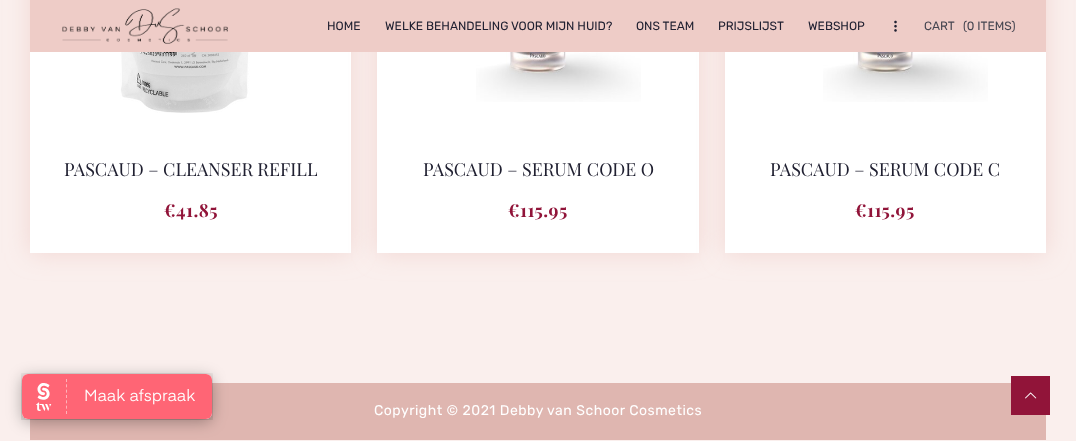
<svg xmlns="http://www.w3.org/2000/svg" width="1076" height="441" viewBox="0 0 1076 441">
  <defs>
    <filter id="blur1" x="-50%" y="-200%" width="200%" height="500%"><feGaussianBlur stdDeviation="12.5"/></filter>
    <filter id="blur2" x="-50%" y="-200%" width="200%" height="500%"><feGaussianBlur stdDeviation="7.5"/></filter>
  </defs>
  <rect width="100%" height="100%" fill="#faefed"/>
  <rect x="30" y="-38" width="321" height="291" fill="#eeccc7" fill-opacity="0.7" filter="url(#blur1)"/>
  <rect x="30" y="52" width="321" height="201" fill="#ffffff"/>
  <rect x="377" y="-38" width="322" height="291" fill="#eeccc7" fill-opacity="0.7" filter="url(#blur1)"/>
  <rect x="377" y="52" width="322" height="201" fill="#ffffff"/>
  <rect x="725" y="-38" width="321" height="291" fill="#eeccc7" fill-opacity="0.7" filter="url(#blur1)"/>
  <rect x="30" y="0" width="1016" height="52" fill="#eeccc7"/>
  <image x="62" y="8" width="166" height="36" href="img1.png"/>
  <text x="327" y="30" font-family="Rubik" font-size="12" fill="#202031">HOME</text>
  <text x="385" y="30" font-family="Rubik" font-size="12" fill="#202031">WELKE BEHANDELING VOOR MIJN HUID?</text>
  <text x="636" y="30" font-family="Rubik" font-size="12" fill="#202031">ONS TEAM</text>
  <text x="718" y="30" font-family="Rubik" font-size="12" fill="#202031">PRIJSLIJST</text>
  <text x="808" y="30" font-family="Rubik" font-size="12" fill="#202031">WEBSHOP</text>
  <image x="894" y="20" width="3" height="12" href="img2.png"/>
  <text x="924" y="30" font-family="Rubik" font-size="12" fill="#454550">CART</text>
  <text x="963" y="30" font-family="Rubik" font-size="12" fill="#454550">(0 ITEMS)</text>
  <image x="119" y="52" width="133" height="61" href="img3.png"/>
  <text x="64" y="176" font-family="Playfair Display" font-size="18" fill="#202031">PASCAUD – CLEANSER REFILL</text>
  <text x="164" y="217" font-family="Playfair Display" font-size="18" font-weight="bold" letter-spacing="0.5" fill="#911439">€41.85</text>
  <image x="476" y="52" width="165" height="50" href="img4.png"/>
  <text x="423" y="176" font-family="Playfair Display" font-size="18" fill="#202031">PASCAUD – SERUM CODE O</text>
  <text x="508" y="217" font-family="Playfair Display" font-size="18" font-weight="bold" letter-spacing="0.5" fill="#911439">€115.95</text>
  <rect x="725" y="52" width="321" height="201" fill="#ffffff"/>
  <image x="823" y="52" width="165" height="50" href="img5.png"/>
  <text x="770" y="176" font-family="Playfair Display" font-size="18" fill="#202031">PASCAUD – SERUM CODE C</text>
  <text x="855" y="217" font-family="Playfair Display" font-size="18" font-weight="bold" letter-spacing="0.5" fill="#911439">€115.95</text>
  <rect x="30" y="383" width="1016" height="57" fill="#dfb6b0"/>
  <text x="374" y="415" font-family="Rubik" font-size="14" letter-spacing="0.5" fill="#ffffff">Copyright © 2021 Debby van Schoor Cosmetics</text>
  <rect x="22" y="377" width="190" height="45" rx="6" fill="#000000" fill-opacity="0.3" filter="url(#blur2)"/>
  <image x="21" y="373" width="192" height="47" href="img6.png"/>
  <rect x="1011" y="376" width="39" height="39" fill="#911439"/>
  <image x="1025" y="392" width="12" height="7" href="img7.png"/>
</svg>
